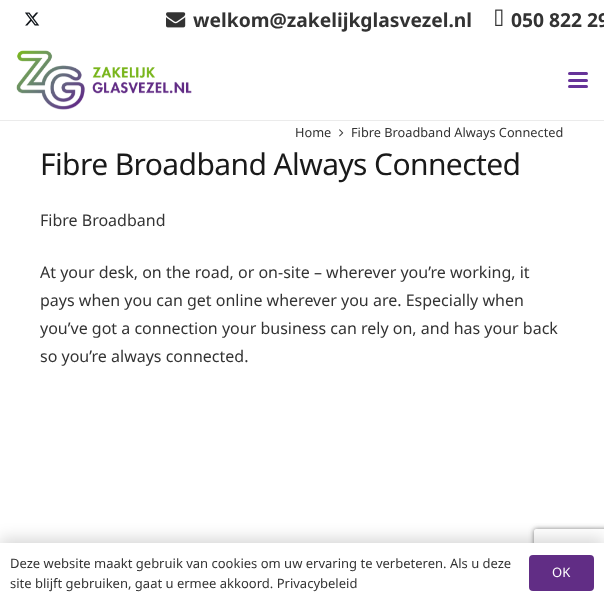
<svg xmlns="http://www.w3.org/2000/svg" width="604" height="603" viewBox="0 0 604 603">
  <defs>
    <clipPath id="clip1"><path d="M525 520H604V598H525ZM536 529H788C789 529 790 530 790 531V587C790 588 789 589 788 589H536C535 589 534 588 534 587V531C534 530 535 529 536 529Z" clip-rule="evenodd"/></clipPath>
    <filter id="blur1" x="-50%" y="-200%" width="200%" height="500%"><feGaussianBlur stdDeviation="2.5"/></filter>
    <filter id="blur2" x="-50%" y="-200%" width="200%" height="500%"><feGaussianBlur stdDeviation="7.5"/></filter>
  </defs>
  <rect width="100%" height="100%" fill="#ffffff"/>
  <image x="25" y="12" width="15" height="14" href="img1.png"/>
  <image x="166" y="12" width="20" height="16" href="img2.png"/>
  <text x="193" y="27" font-family="Noto Sans" font-size="19.25" font-weight="bold" fill="#333333">welkom@zakelijkglasvezel.nl</text>
  <image x="495" y="9" width="8" height="17" href="img3.png"/>
  <text x="511" y="27" font-family="Noto Sans" font-size="19.25" font-weight="bold" fill="#333333">050 822 29</text>
  <rect x="0" y="120" width="604" height="1" fill="#ebebeb"/>
  <image x="16" y="50" width="176" height="60" href="img4.png"/>
  <rect x="568" y="79" width="20" height="3" rx="1.5" fill="#663399"/>
  <rect x="568" y="72" width="20" height="3" rx="1.5" fill="#663399"/>
  <rect x="568" y="85" width="20" height="3" rx="1.5" fill="#663399"/>
  <text x="295" y="137" font-family="Noto Sans" font-size="12.75" fill="#333333">Home</text>
  <image x="339" y="129" width="5" height="8" href="img5.png"/>
  <text x="351" y="137" font-family="Noto Sans" font-size="12.75" fill="#333333">Fibre Broadband Always Connected</text>
  <text x="40" y="175" font-family="Noto Sans" font-size="30" letter-spacing="-0.6" fill="#1a1a1a">Fibre Broadband Always Connected</text>
  <text x="40" y="226" font-family="Noto Sans" font-size="16" fill="#333333">Fibre Broadband</text>
  <text x="40" y="278" font-family="Noto Sans" font-size="16" fill="#333333">At your desk, on the road, or on-site – wherever you’re working, it</text>
  <text x="40" y="306" font-family="Noto Sans" font-size="16" fill="#333333">pays when you can get online wherever you are. Especially when</text>
  <text x="40" y="334" font-family="Noto Sans" font-size="16" fill="#333333">you’ve got a connection your business can rely on, and has your back</text>
  <text x="40" y="362" font-family="Noto Sans" font-size="16" fill="#333333">so you’re always connected.</text>
  <g clip-path="url(#clip1)">
    <rect x="534" y="529" width="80" height="60" rx="2" fill="#808080" filter="url(#blur1)"/>
  </g>
  <rect x="0" y="538" width="604" height="60" fill="#000000" fill-opacity="0.15" filter="url(#blur2)"/>
  <rect x="0" y="543" width="604" height="60" fill="#ffffff"/>
  <text x="10" y="568" font-family="Noto Sans" font-size="13" fill="#333333">Deze website maakt gebruik van cookies om uw ervaring te verbeteren. Als u deze</text>
  <text x="10" y="588" font-family="Noto Sans" font-size="13" fill="#333333">site blijft gebruiken, gaat u ermee akkoord. Privacybeleid</text>
  <rect x="529" y="555" width="65" height="36" rx="4" fill="#612d85"/>
  <text x="552" y="577" font-family="Noto Sans" font-size="13" fill="#ffffff">OK</text>
</svg>
